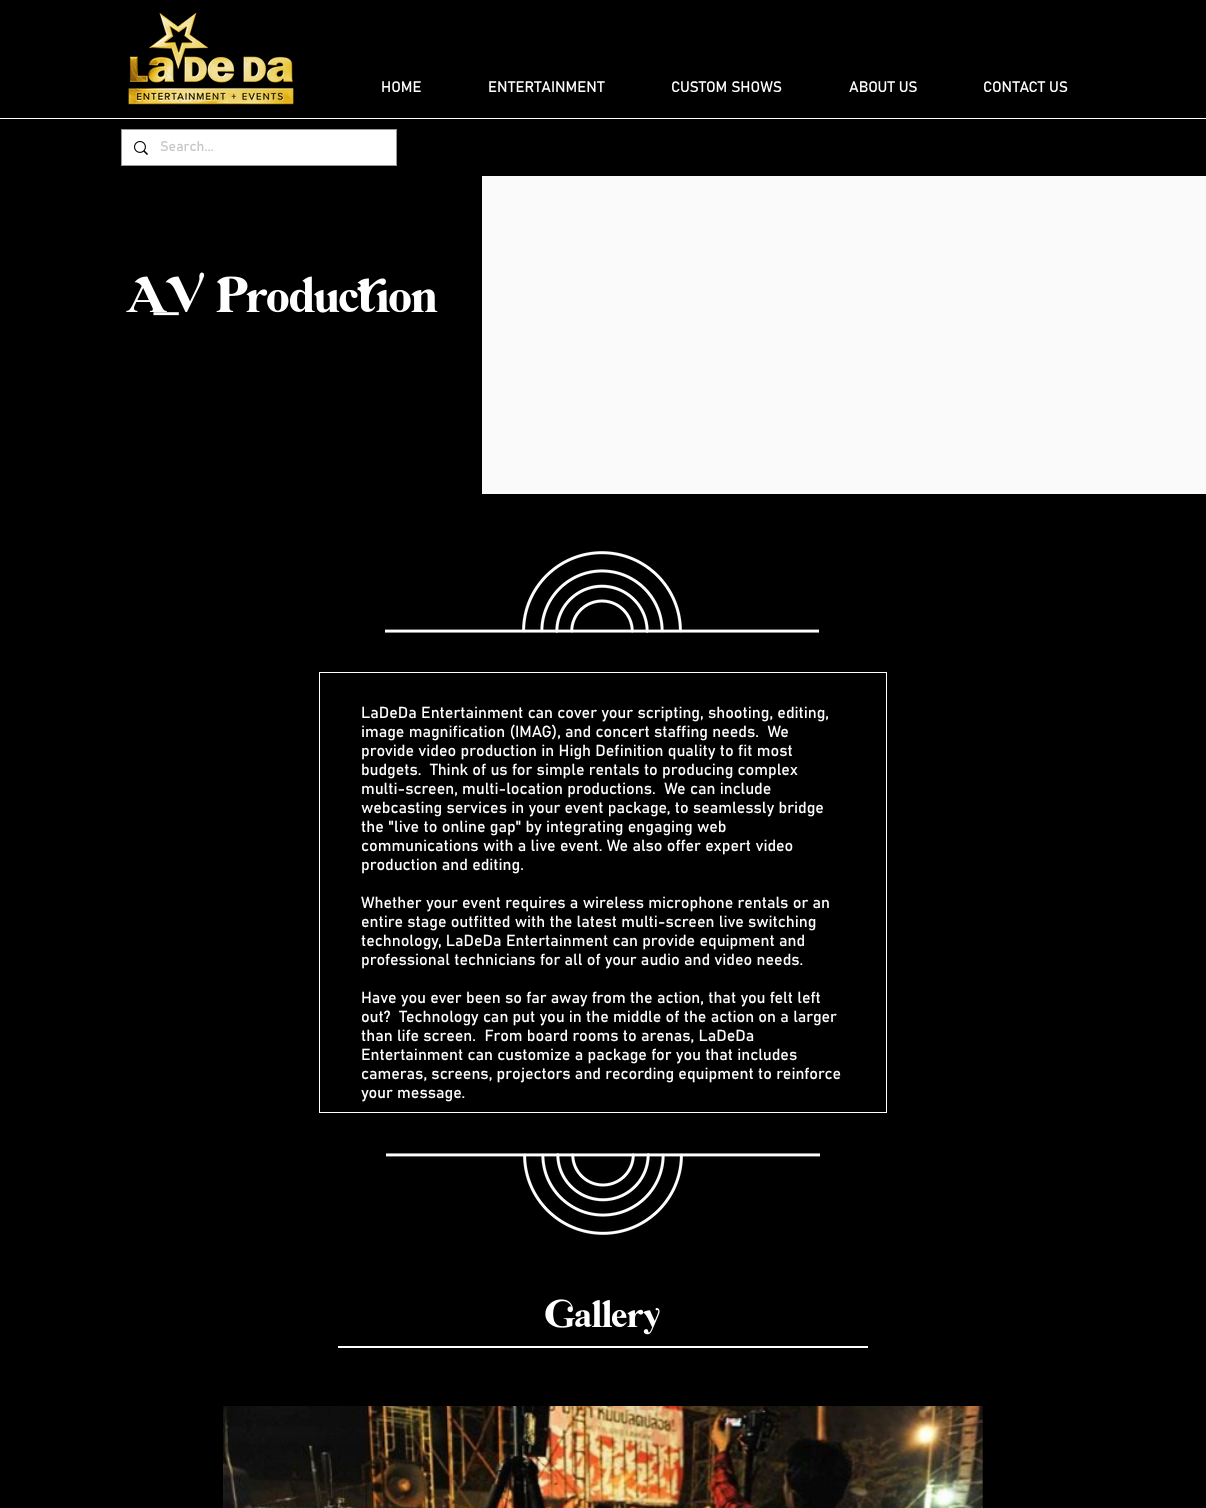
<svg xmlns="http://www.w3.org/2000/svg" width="1206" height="1508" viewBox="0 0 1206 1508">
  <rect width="100%" height="100%" fill="#000000"/>
  <image x="128" y="12" width="166" height="93" href="img1.png"/>
  <text x="381" y="92" font-family="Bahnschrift" font-size="15" fill="#ffffff">HOME</text>
  <text x="488" y="92" font-family="Bahnschrift" font-size="15" fill="#ffffff">ENTERTAINMENT</text>
  <text x="671" y="92" font-family="Bahnschrift" font-size="15" fill="#ffffff">CUSTOM SHOWS</text>
  <text x="849" y="92" font-family="Bahnschrift" font-size="15" fill="#ffffff">ABOUT US</text>
  <text x="983" y="92" font-family="Bahnschrift" font-size="15" fill="#ffffff">CONTACT US</text>
  <rect x="0" y="118" width="1206" height="1" fill="#ffffff"/>
  <rect x="121.5" y="129.5" width="275" height="36" fill="none" stroke="#999999"/>
  <rect x="122" y="130" width="274" height="35" fill="#ffffff"/>
  <image x="134" y="141" width="14" height="14" href="img2.png"/>
  <text x="160" y="151" font-family="Bahnschrift" font-size="14" fill="#c7c7c7">Search...</text>
  <image x="126" y="272" width="312" height="44" href="img3.png"/>
  <rect x="482" y="176" width="724" height="318" fill="#fafafa"/>
  <image x="385" y="551" width="434" height="82" href="img4.png"/>
  <rect x="319.5" y="672.5" width="567" height="440" fill="none" stroke="#ffffff"/>
  <text x="361" y="718" font-family="Bahnschrift" font-size="16" fill="#ffffff">LaDeDa Entertainment can cover your scripting, shooting, editing,</text>
  <text x="361" y="737" font-family="Bahnschrift" font-size="16" fill="#ffffff" xml:space="preserve">image magnification (IMAG), and concert staffing needs.  We</text>
  <text x="361" y="756" font-family="Bahnschrift" font-size="16" fill="#ffffff">provide video production in High Definition quality to fit most</text>
  <text x="361" y="775" font-family="Bahnschrift" font-size="16" fill="#ffffff" xml:space="preserve">budgets.  Think of us for simple rentals to producing complex</text>
  <text x="361" y="794" font-family="Bahnschrift" font-size="16" fill="#ffffff" xml:space="preserve">multi-screen, multi-location productions.  We can include</text>
  <text x="361" y="813" font-family="Bahnschrift" font-size="16" fill="#ffffff">webcasting services in your event package, to seamlessly bridge</text>
  <text x="361" y="832" font-family="Bahnschrift" font-size="16" fill="#ffffff">the "live to online gap" by integrating engaging web</text>
  <text x="361" y="851" font-family="Bahnschrift" font-size="16" fill="#ffffff">communications with a live event. We also offer expert video</text>
  <text x="361" y="870" font-family="Bahnschrift" font-size="16" fill="#ffffff">production and editing.</text>
  <text x="361" y="908" font-family="Bahnschrift" font-size="16" fill="#ffffff">Whether your event requires a wireless microphone rentals or an</text>
  <text x="361" y="927" font-family="Bahnschrift" font-size="16" fill="#ffffff">entire stage outfitted with the latest multi-screen live switching</text>
  <text x="361" y="946" font-family="Bahnschrift" font-size="16" fill="#ffffff">technology, LaDeDa Entertainment can provide equipment and</text>
  <text x="361" y="965" font-family="Bahnschrift" font-size="16" fill="#ffffff">professional technicians for all of your audio and video needs.</text>
  <text x="361" y="1003" font-family="Bahnschrift" font-size="16" fill="#ffffff">Have you ever been so far away from the action, that you felt left</text>
  <text x="361" y="1022" font-family="Bahnschrift" font-size="16" fill="#ffffff" xml:space="preserve">out?  Technology can put you in the middle of the action on a larger</text>
  <text x="361" y="1041" font-family="Bahnschrift" font-size="16" fill="#ffffff" xml:space="preserve">than life screen.  From board rooms to arenas, LaDeDa</text>
  <text x="361" y="1060" font-family="Bahnschrift" font-size="16" fill="#ffffff">Entertainment can customize a package for you that includes</text>
  <text x="361" y="1079" font-family="Bahnschrift" font-size="16" fill="#ffffff">cameras, screens, projectors and recording equipment to reinforce</text>
  <text x="361" y="1098" font-family="Bahnschrift" font-size="16" fill="#ffffff">your message.</text>
  <image x="386" y="1153" width="434" height="82" href="img5.png"/>
  <image x="545" y="1299" width="115" height="36" href="img6.png"/>
  <rect x="338" y="1346" width="530" height="2" fill="#ffffff"/>
  <image x="223" y="1406" width="760" height="102" href="img7.png"/>
</svg>
